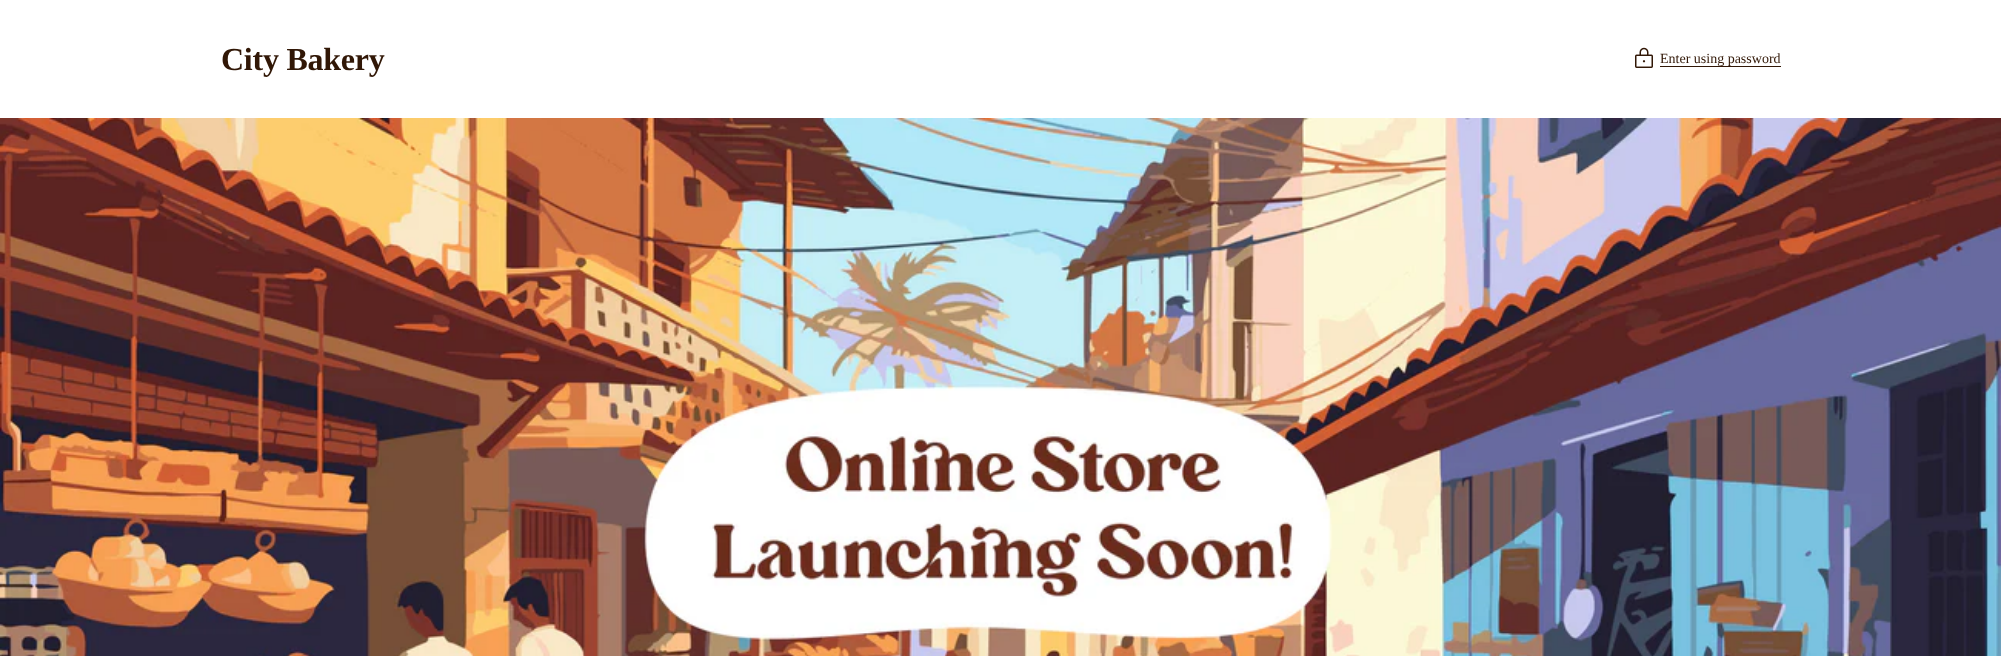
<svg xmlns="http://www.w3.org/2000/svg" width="2001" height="656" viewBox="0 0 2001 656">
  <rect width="100%" height="100%" fill="#ffffff"/>
  <text x="221" y="70" font-family="Liberation Serif" font-size="32" font-weight="bold" letter-spacing="-0.25" fill="#311706">City Bakery</text>
  <image x="1635" y="47" width="18" height="21" href="img1.png"/>
  <text x="1660" y="63" font-family="Liberation Serif" font-size="14" fill="#311706">Enter using password</text>
  <rect x="1660" y="66" width="121" height="1" fill="#311706"/>
  <image x="0" y="118" width="2001" height="538" href="img2.png"/>
</svg>
